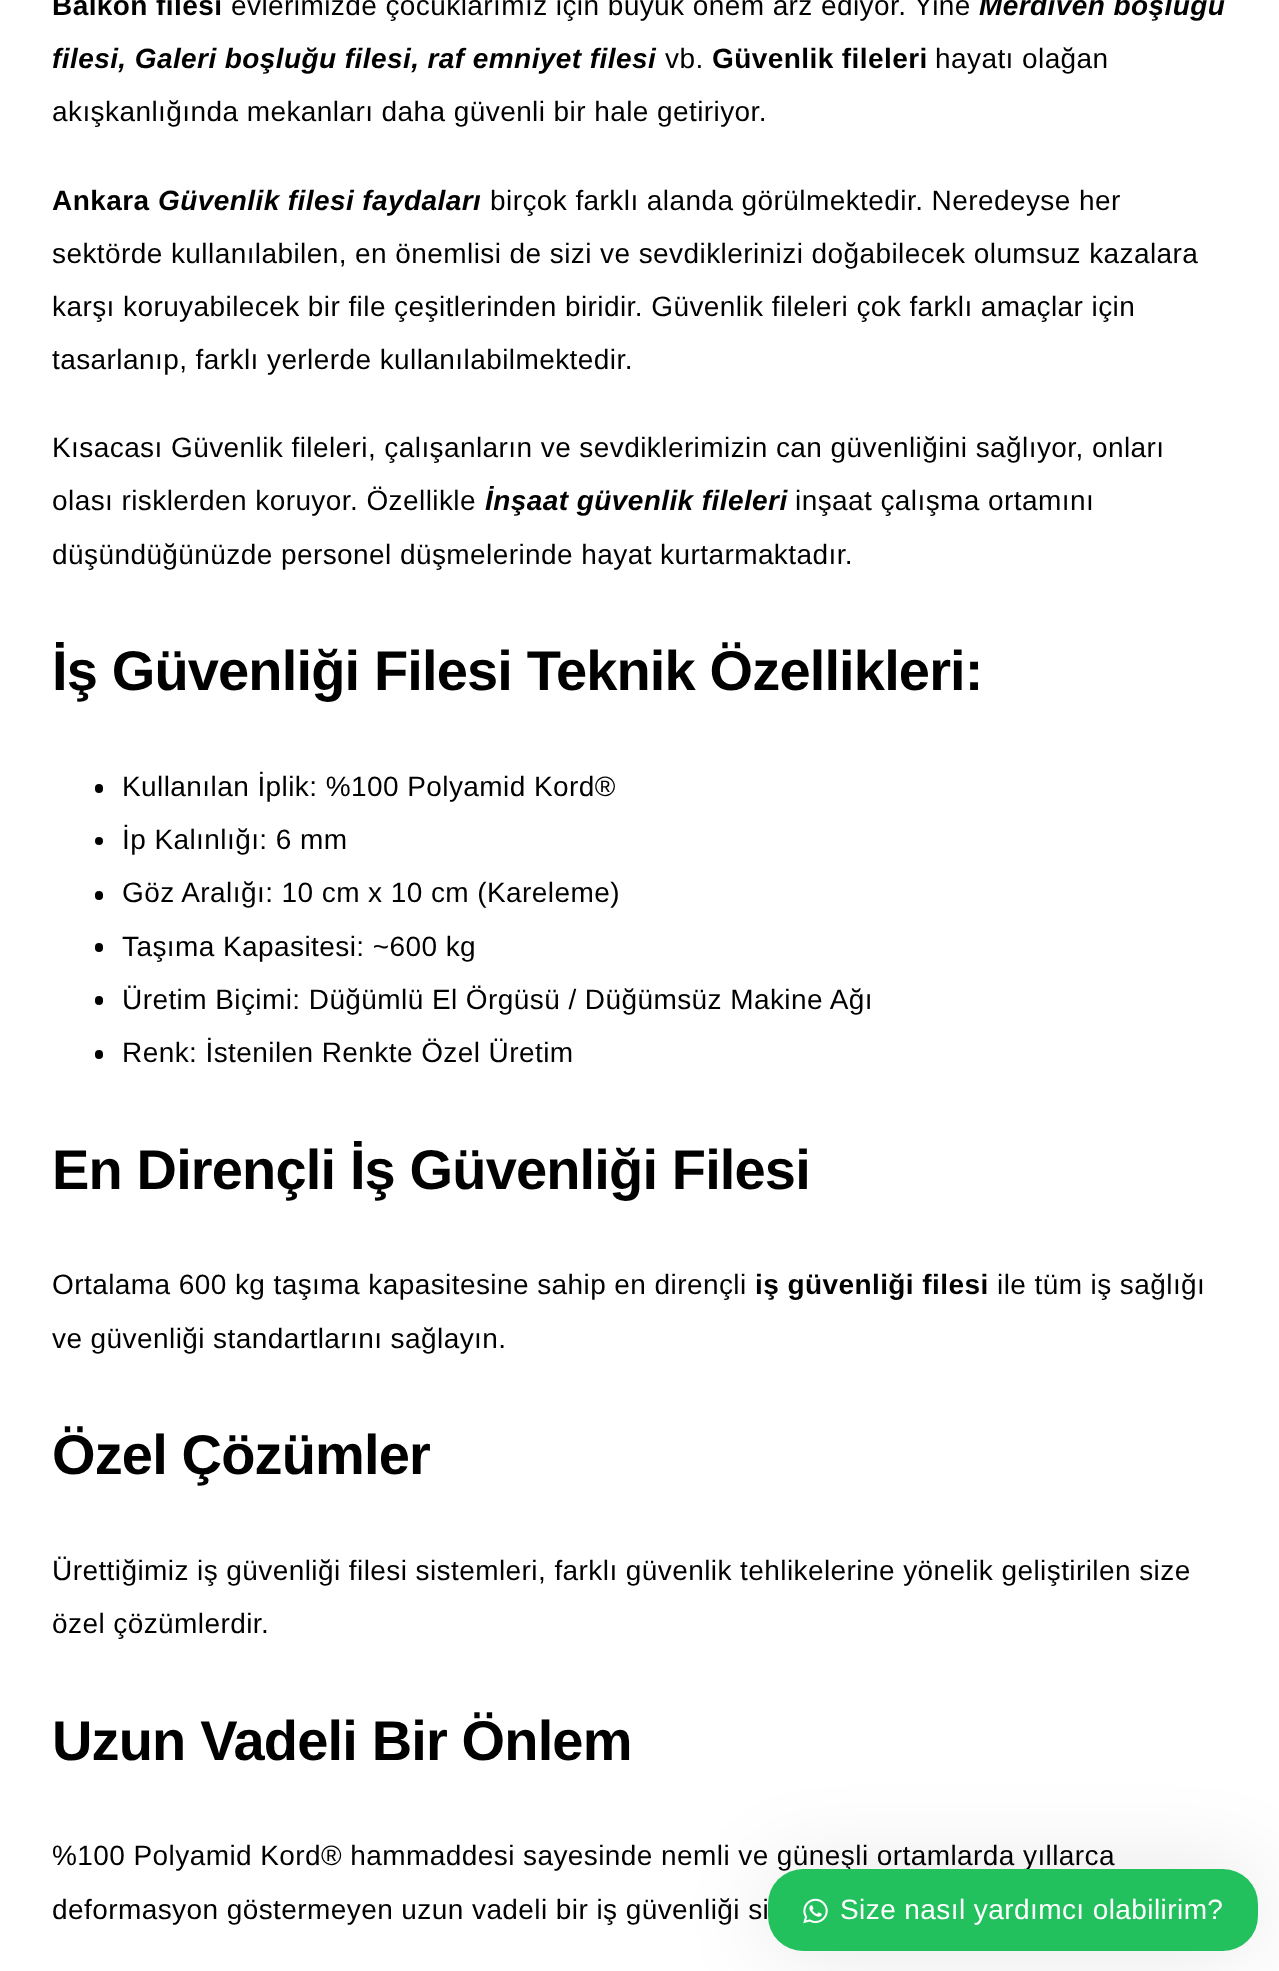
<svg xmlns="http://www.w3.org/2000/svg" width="1279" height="1971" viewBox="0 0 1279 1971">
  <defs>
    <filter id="blur1" x="-50%" y="-200%" width="200%" height="500%"><feGaussianBlur stdDeviation="44"/></filter>
  </defs>
  <rect width="100%" height="100%" fill="#ffffff"/>
  <text x="52" y="15" font-family="Liberation Sans" font-size="28" font-weight="bold" letter-spacing="0.42" fill="#000000">Balkon filesi</text>
  <text x="231" y="15" font-family="Liberation Sans" font-size="28" letter-spacing="0.42" fill="#000000">evlerimizde çocuklarımız için büyük önem arz ediyor. Yine</text>
  <text x="979" y="15" font-family="Liberation Sans" font-size="28" font-weight="bold" font-style="italic" letter-spacing="0.42" fill="#000000">Merdiven boşluğu</text>
  <text x="52" y="68" font-family="Liberation Sans" font-size="28" font-weight="bold" font-style="italic" letter-spacing="0.42" fill="#000000">filesi, Galeri boşluğu filesi, raf emniyet filesi</text>
  <text x="665" y="68" font-family="Liberation Sans" font-size="28" letter-spacing="0.42" fill="#000000">vb.</text>
  <text x="712" y="68" font-family="Liberation Sans" font-size="28" font-weight="bold" letter-spacing="0.42" fill="#000000">Güvenlik fileleri</text>
  <text x="935" y="68" font-family="Liberation Sans" font-size="28" letter-spacing="0.42" fill="#000000">hayatı olağan</text>
  <text x="52" y="121" font-family="Liberation Sans" font-size="28" letter-spacing="0.42" fill="#000000">akışkanlığında mekanları daha güvenli bir hale getiriyor.</text>
  <text x="52" y="210" font-family="Liberation Sans" font-size="28" font-weight="bold" letter-spacing="0.42" fill="#000000">Ankara</text>
  <text x="158" y="210" font-family="Liberation Sans" font-size="28" font-weight="bold" font-style="italic" letter-spacing="0.42" fill="#000000">Güvenlik filesi faydaları</text>
  <text x="490" y="210" font-family="Liberation Sans" font-size="28" letter-spacing="0.42" fill="#000000">birçok farklı alanda görülmektedir. Neredeyse her</text>
  <text x="52" y="263" font-family="Liberation Sans" font-size="28" letter-spacing="0.42" fill="#000000">sektörde kullanılabilen, en önemlisi de sizi ve sevdiklerinizi doğabilecek olumsuz kazalara</text>
  <text x="52" y="316" font-family="Liberation Sans" font-size="28" letter-spacing="0.42" fill="#000000">karşı koruyabilecek bir file çeşitlerinden biridir. Güvenlik fileleri çok farklı amaçlar için</text>
  <text x="52" y="369" font-family="Liberation Sans" font-size="28" letter-spacing="0.42" fill="#000000">tasarlanıp, farklı yerlerde kullanılabilmektedir.</text>
  <text x="52" y="457" font-family="Liberation Sans" font-size="28" letter-spacing="0.42" fill="#000000">Kısacası Güvenlik fileleri, çalışanların ve sevdiklerimizin can güvenliğini sağlıyor, onları</text>
  <text x="52" y="510" font-family="Liberation Sans" font-size="28" letter-spacing="0.42" fill="#000000">olası risklerden koruyor. Özellikle</text>
  <text x="485" y="510" font-family="Liberation Sans" font-size="28" font-weight="bold" font-style="italic" letter-spacing="0.42" fill="#000000">İnşaat güvenlik fileleri</text>
  <text x="795" y="510" font-family="Liberation Sans" font-size="28" letter-spacing="0.42" fill="#000000">inşaat çalışma ortamını</text>
  <text x="52" y="564" font-family="Liberation Sans" font-size="28" letter-spacing="0.42" fill="#000000">düşündüğünüzde personel düşmelerinde hayat kurtarmaktadır.</text>
  <text x="52" y="690" font-family="Liberation Sans" font-size="56" font-weight="bold" letter-spacing="-0.85" fill="#000000">İş Güvenliği Filesi Teknik Özellikleri:</text>
  <rect x="95" y="784" width="8" height="9" rx="4" fill="#000000"/>
  <text x="122" y="796" font-family="Liberation Sans" font-size="28" letter-spacing="0.42" fill="#000000">Kullanılan İplik: %100 Polyamid Kord®</text>
  <circle cx="99" cy="841" r="4" fill="#000000"/>
  <text x="122" y="849" font-family="Liberation Sans" font-size="28" letter-spacing="0.42" fill="#000000">İp Kalınlığı: 6 mm</text>
  <rect x="95" y="891" width="8" height="9" rx="4" fill="#000000"/>
  <text x="122" y="902" font-family="Liberation Sans" font-size="28" letter-spacing="0.42" fill="#000000">Göz Aralığı: 10 cm x 10 cm (Kareleme)</text>
  <rect x="95" y="943" width="8" height="9" rx="4" fill="#000000"/>
  <text x="122" y="956" font-family="Liberation Sans" font-size="28" letter-spacing="0.42" fill="#000000">Taşıma Kapasitesi: ~600 kg</text>
  <rect x="95" y="996" width="8" height="9" rx="4" fill="#000000"/>
  <text x="122" y="1009" font-family="Liberation Sans" font-size="28" letter-spacing="0.42" fill="#000000">Üretim Biçimi: Düğümlü El Örgüsü / Düğümsüz Makine Ağı</text>
  <rect x="95" y="1050" width="8" height="9" rx="4" fill="#000000"/>
  <text x="122" y="1062" font-family="Liberation Sans" font-size="28" letter-spacing="0.42" fill="#000000">Renk: İstenilen Renkte Özel Üretim</text>
  <text x="52" y="1189" font-family="Liberation Sans" font-size="56" font-weight="bold" letter-spacing="-0.85" fill="#000000">En Dirençli İş Güvenliği Filesi</text>
  <text x="52" y="1294" font-family="Liberation Sans" font-size="28" letter-spacing="0.42" fill="#000000">Ortalama 600 kg taşıma kapasitesine sahip en dirençli</text>
  <text x="755" y="1294" font-family="Liberation Sans" font-size="28" font-weight="bold" letter-spacing="0.42" fill="#000000">iş güvenliği filesi</text>
  <text x="997" y="1294" font-family="Liberation Sans" font-size="28" letter-spacing="0.42" fill="#000000">ile tüm iş sağlığı</text>
  <text x="52" y="1348" font-family="Liberation Sans" font-size="28" letter-spacing="0.42" fill="#000000">ve güvenliği standartlarını sağlayın.</text>
  <text x="52" y="1474" font-family="Liberation Sans" font-size="56" font-weight="bold" letter-spacing="-0.85" fill="#000000">Özel Çözümler</text>
  <text x="52" y="1580" font-family="Liberation Sans" font-size="28" letter-spacing="0.42" fill="#000000">Ürettiğimiz iş güvenliği filesi sistemleri, farklı güvenlik tehlikelerine yönelik geliştirilen size</text>
  <text x="52" y="1633" font-family="Liberation Sans" font-size="28" letter-spacing="0.42" fill="#000000">özel çözümlerdir.</text>
  <text x="52" y="1760" font-family="Liberation Sans" font-size="56" font-weight="bold" letter-spacing="-0.85" fill="#000000">Uzun Vadeli Bir Önlem</text>
  <text x="52" y="1865" font-family="Liberation Sans" font-size="28" letter-spacing="0.42" fill="#000000">%100 Polyamid Kord® hammaddesi sayesinde nemli ve güneşli ortamlarda yıllarca</text>
  <text x="52" y="1919" font-family="Liberation Sans" font-size="28" letter-spacing="0.42" fill="#000000">deformasyon göstermeyen uzun vadeli bir iş güvenliği si</text>
  <rect x="768" y="1869" width="490" height="82" rx="35" fill="#000000" fill-opacity="0.1" filter="url(#blur1)"/>
  <rect x="768" y="1869" width="490" height="82" rx="35" fill="#22c15e"/>
  <image x="803" y="1898" width="25" height="26" href="img1.png"/>
  <text x="840" y="1919" font-family="Liberation Sans" font-size="28" letter-spacing="0.42" fill="#ffffff">Size nasıl yardımcı olabilirim?</text>
</svg>
